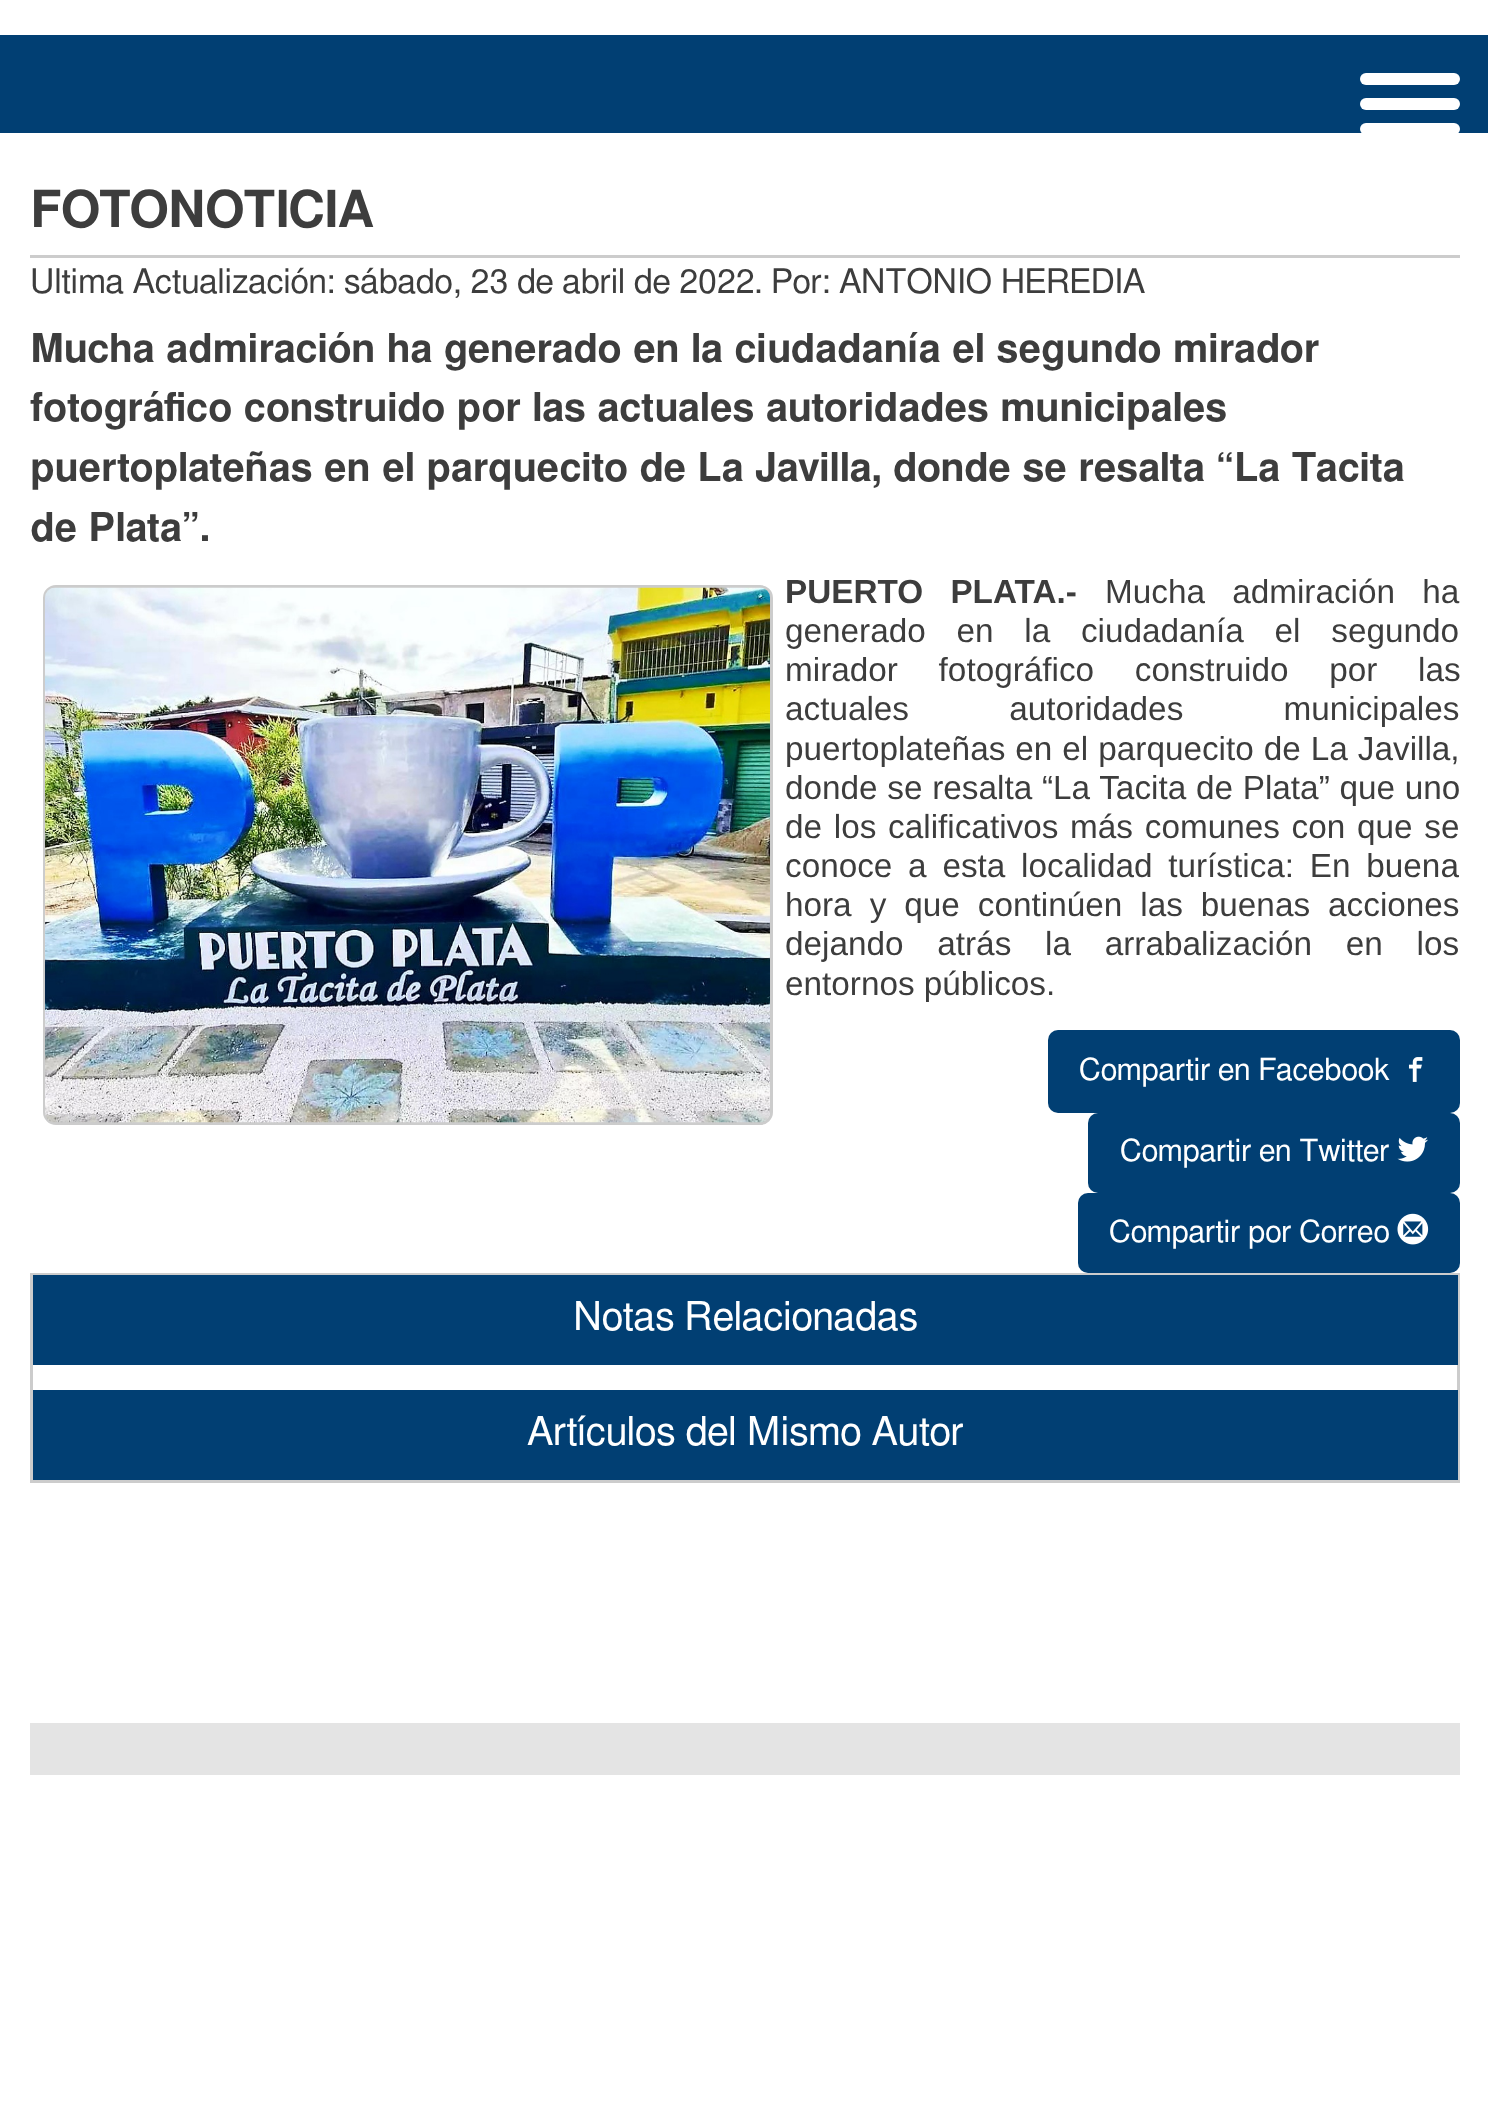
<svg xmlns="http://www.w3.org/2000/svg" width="1488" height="2111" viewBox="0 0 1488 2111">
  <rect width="100%" height="100%" fill="#ffffff"/>
  <rect x="0" y="35" width="1488" height="98" fill="#013f73"/>
  <rect x="1360" y="73" width="100" height="12" rx="6" fill="#ffffff"/>
  <rect x="1360" y="98" width="100" height="12" rx="6" fill="#ffffff"/>
  <rect x="1360" y="123" width="100" height="12" rx="6" fill="#ffffff"/>
  <rect x="30" y="255" width="1430" height="3" fill="#cccccc"/>
  <text x="30" y="227" font-family="FreeSans" font-size="51" font-weight="600" fill="#3d3d3d">FOTONOTICIA</text>
  <text x="30" y="293" font-family="FreeSans" font-size="34" fill="#3d3d3d">Ultima Actualización: sábado, 23 de abril de 2022</text>
  <text x="754" y="293" font-family="FreeSans" font-size="34" fill="#3d3d3d">. Por: ANTONIO HEREDIA</text>
  <text x="30" y="362" font-family="FreeSans" font-size="39.8" font-weight="600" fill="#3d3d3d">Mucha admiración ha generado en la ciudadanía el segundo mirador</text>
  <text x="30" y="421" font-family="FreeSans" font-size="39.8" font-weight="600" fill="#3d3d3d">fotográfico construido por las actuales autoridades municipales</text>
  <text x="30" y="481" font-family="FreeSans" font-size="39.8" font-weight="600" fill="#3d3d3d">puertoplateñas en el parquecito de La Javilla, donde se resalta “La Tacita</text>
  <text x="30" y="541" font-family="FreeSans" font-size="39.8" font-weight="600" fill="#3d3d3d">de Plata”.</text>
  <rect x="44.5" y="586.5" width="727" height="537" rx="11.5" fill="none" stroke="#cccccc" stroke-width="3"/>
  <image x="45" y="587" width="725" height="536" href="img1.png"/>
  <text x="785" y="603" word-spacing="18" font-family="Liberation Sans" font-size="33.3" font-weight="bold" fill="#3d3d3d">PUERTO PLATA.-</text>
  <text x="1105" y="603" word-spacing="18" font-family="Liberation Sans" font-size="33.3" fill="#3d3d3d">Mucha admiración ha</text>
  <text x="785" y="642" word-spacing="21.5" font-family="Liberation Sans" font-size="33.3" fill="#3d3d3d">generado en la ciudadanía el segundo</text>
  <text x="785" y="681" word-spacing="31.5" font-family="Liberation Sans" font-size="33.3" fill="#3d3d3d">mirador fotográfico construido por las</text>
  <text x="785" y="720" word-spacing="91" font-family="Liberation Sans" font-size="33.3" fill="#3d3d3d">actuales autoridades municipales</text>
  <text x="785" y="760" word-spacing="0.75" font-family="Liberation Sans" font-size="33.3" fill="#3d3d3d">puertoplateñas en el parquecito de La Javilla,</text>
  <text x="785" y="799" word-spacing="0.5" font-family="Liberation Sans" font-size="33.3" fill="#3d3d3d">donde se resalta “La Tacita de Plata” que uno</text>
  <text x="785" y="838" word-spacing="2.5" font-family="Liberation Sans" font-size="33.3" fill="#3d3d3d">de los calificativos más comunes con que se</text>
  <text x="785" y="877" word-spacing="6.5" font-family="Liberation Sans" font-size="33.3" fill="#3d3d3d">conoce a esta localidad turística: En buena</text>
  <text x="785" y="916" word-spacing="8.75" font-family="Liberation Sans" font-size="33.3" fill="#3d3d3d">hora y que continúen las buenas acciones</text>
  <text x="785" y="955" word-spacing="24.5" font-family="Liberation Sans" font-size="33.3" fill="#3d3d3d">dejando atrás la arrabalización en los</text>
  <text x="785" y="995" font-family="Liberation Sans" font-size="33.3" fill="#3d3d3d">entornos públicos.</text>
  <rect x="1048" y="1030" width="412" height="83" rx="10" fill="#013f73"/>
  <text x="1079" y="1080" font-family="FreeSans" font-size="30.6" fill="#ffffff">Compartir en Facebook</text>
  <image x="1408" y="1057" width="15" height="25" href="img2.png"/>
  <rect x="1088" y="1113" width="372" height="80" rx="10" fill="#013f73"/>
  <text x="1120" y="1161" font-family="FreeSans" font-size="30.6" fill="#ffffff">Compartir en Twitter</text>
  <image x="1397" y="1136" width="31" height="26" href="img3.png"/>
  <rect x="1078" y="1193" width="382" height="80" rx="10" fill="#013f73"/>
  <text x="1109" y="1242" font-family="FreeSans" font-size="30.6" fill="#ffffff">Compartir por Correo</text>
  <image x="1397" y="1213" width="32" height="32" href="img4.png"/>
  <rect x="31.5" y="1274.5" width="1427" height="207" fill="none" stroke="#cccccc" stroke-width="3"/>
  <rect x="33" y="1275" width="1425" height="90" fill="#013f73"/>
  <text x="573" y="1330" font-family="FreeSans" font-size="39.8" fill="#ffffff">Notas Relacionadas</text>
  <rect x="33" y="1390" width="1425" height="90" fill="#013f73"/>
  <text x="527" y="1445" font-family="FreeSans" font-size="39.8" fill="#ffffff">Artículos del Mismo Autor</text>
  <rect x="30" y="1723" width="1430" height="52" fill="#e4e4e4"/>
</svg>
